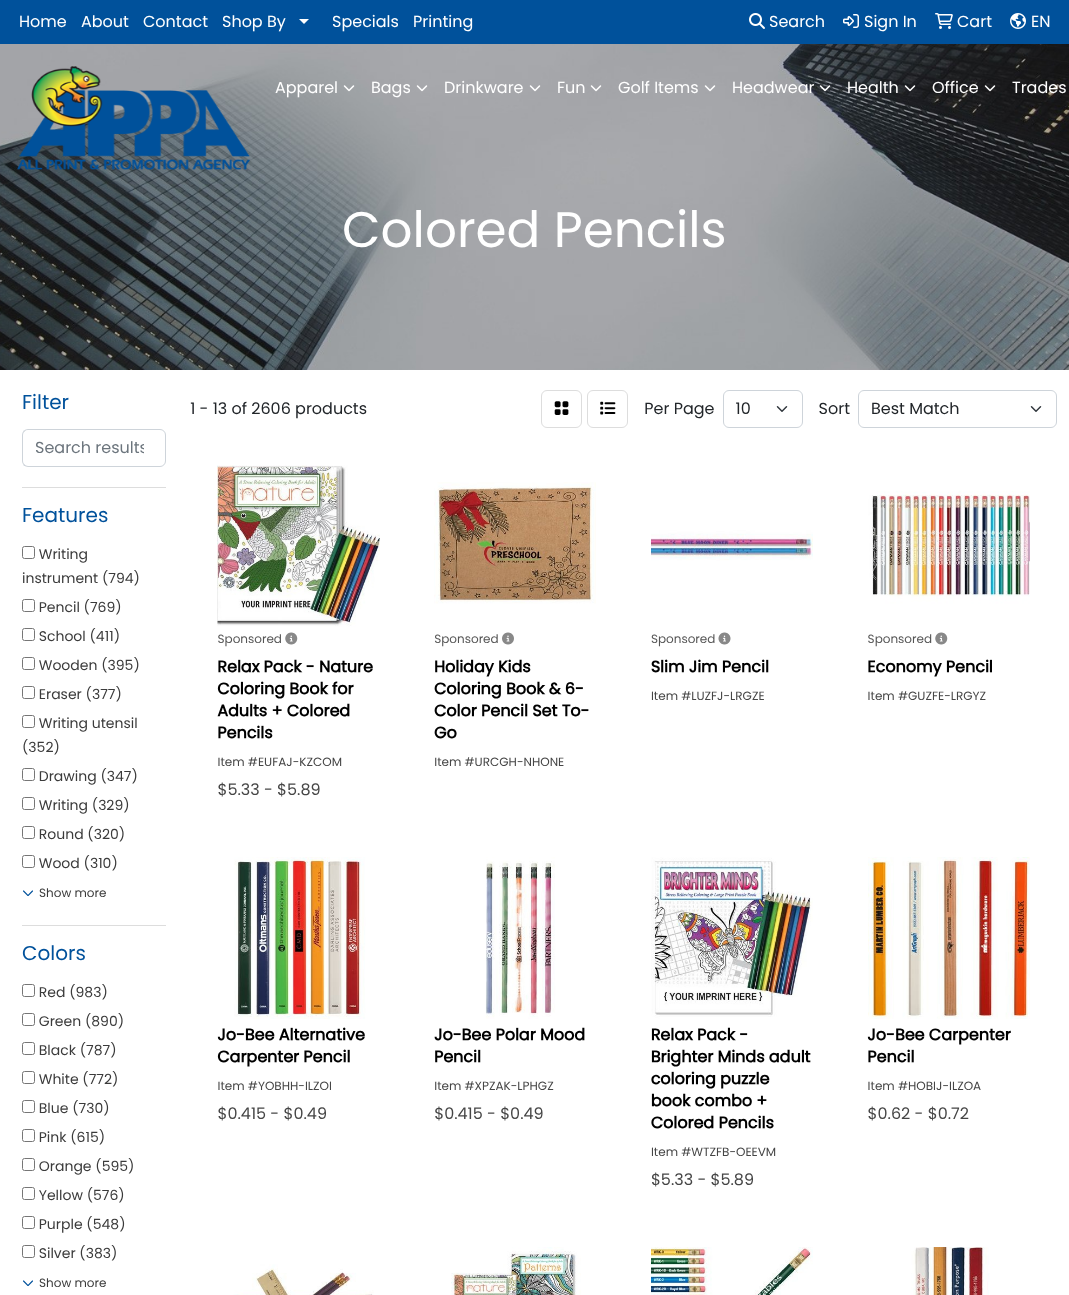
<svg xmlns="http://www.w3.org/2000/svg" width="1069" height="1295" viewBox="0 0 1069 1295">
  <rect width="100%" height="100%" fill="#ffffff"/>
  <rect x="0" y="0" width="1069" height="44" fill="#00519b"/>
  <text x="19" y="27" font-family="Poppins" font-size="16" fill="#ffffff">Home</text>
  <text x="81" y="27" font-family="Poppins" font-size="16" fill="#ffffff">About</text>
  <text x="143" y="27" font-family="Poppins" font-size="16" fill="#ffffff">Contact</text>
  <text x="222" y="27" font-family="Poppins" font-size="16" fill="#ffffff">Shop By</text>
  <path d="M299 19H309L304 24Z" fill="#ffffff"/>
  <text x="332" y="27" font-family="Poppins" font-size="16" fill="#ffffff">Specials</text>
  <text x="413" y="27" font-family="Poppins" font-size="16" fill="#ffffff">Printing</text>
  <image x="749" y="13" width="16" height="16" href="img1.png"/>
  <text x="769" y="27" font-family="Poppins" font-size="16" fill="#ffffff">Search</text>
  <image x="843" y="14" width="16" height="14" href="img2.png"/>
  <text x="864" y="27" font-family="Poppins" font-size="16" fill="#ffffff">Sign In</text>
  <image x="935" y="13" width="18" height="16" href="img3.png"/>
  <text x="957" y="27" font-family="Poppins" font-size="16" fill="#ffffff">Cart</text>
  <image x="1010" y="13" width="16" height="16" href="img4.png"/>
  <text x="1031" y="27" font-family="Poppins" font-size="16" fill="#ffffff">EN</text>
  <image x="0" y="44" width="1069" height="326" href="img14.png"/>
  <image x="17" y="66" width="233" height="104" href="img5.png"/>
  <text x="275" y="93" font-family="Poppins" font-size="16" fill="#ffffff">Apparel</text>
  <image x="343" y="85" width="12" height="7" href="img6.png"/>
  <text x="371" y="93" font-family="Poppins" font-size="16" fill="#ffffff">Bags</text>
  <image x="416" y="85" width="12" height="7" href="img7.png"/>
  <text x="444" y="93" font-family="Poppins" font-size="16" fill="#ffffff">Drinkware</text>
  <image x="529" y="85" width="12" height="7" href="img8.png"/>
  <text x="557" y="93" font-family="Poppins" font-size="16" fill="#ffffff">Fun</text>
  <image x="590" y="85" width="12" height="7" href="img9.png"/>
  <text x="618" y="93" font-family="Poppins" font-size="16" fill="#ffffff">Golf Items</text>
  <image x="704" y="85" width="12" height="7" href="img10.png"/>
  <text x="732" y="93" font-family="Poppins" font-size="16" fill="#ffffff">Headwear</text>
  <image x="819" y="85" width="12" height="7" href="img11.png"/>
  <text x="847" y="93" font-family="Poppins" font-size="16" fill="#ffffff">Health</text>
  <image x="904" y="85" width="12" height="7" href="img12.png"/>
  <text x="932" y="93" font-family="Poppins" font-size="16" fill="#ffffff">Office</text>
  <image x="984" y="85" width="12" height="7" href="img13.png"/>
  <text x="1012" y="93" font-family="Poppins" font-size="16" fill="#ffffff">Trades</text>
  <text x="342" y="247" font-family="Poppins" font-size="50" fill="#ffffff">Colored Pencils</text>
  <image x="22" y="390" width="1035" height="905" href="img15.png"/>
</svg>
